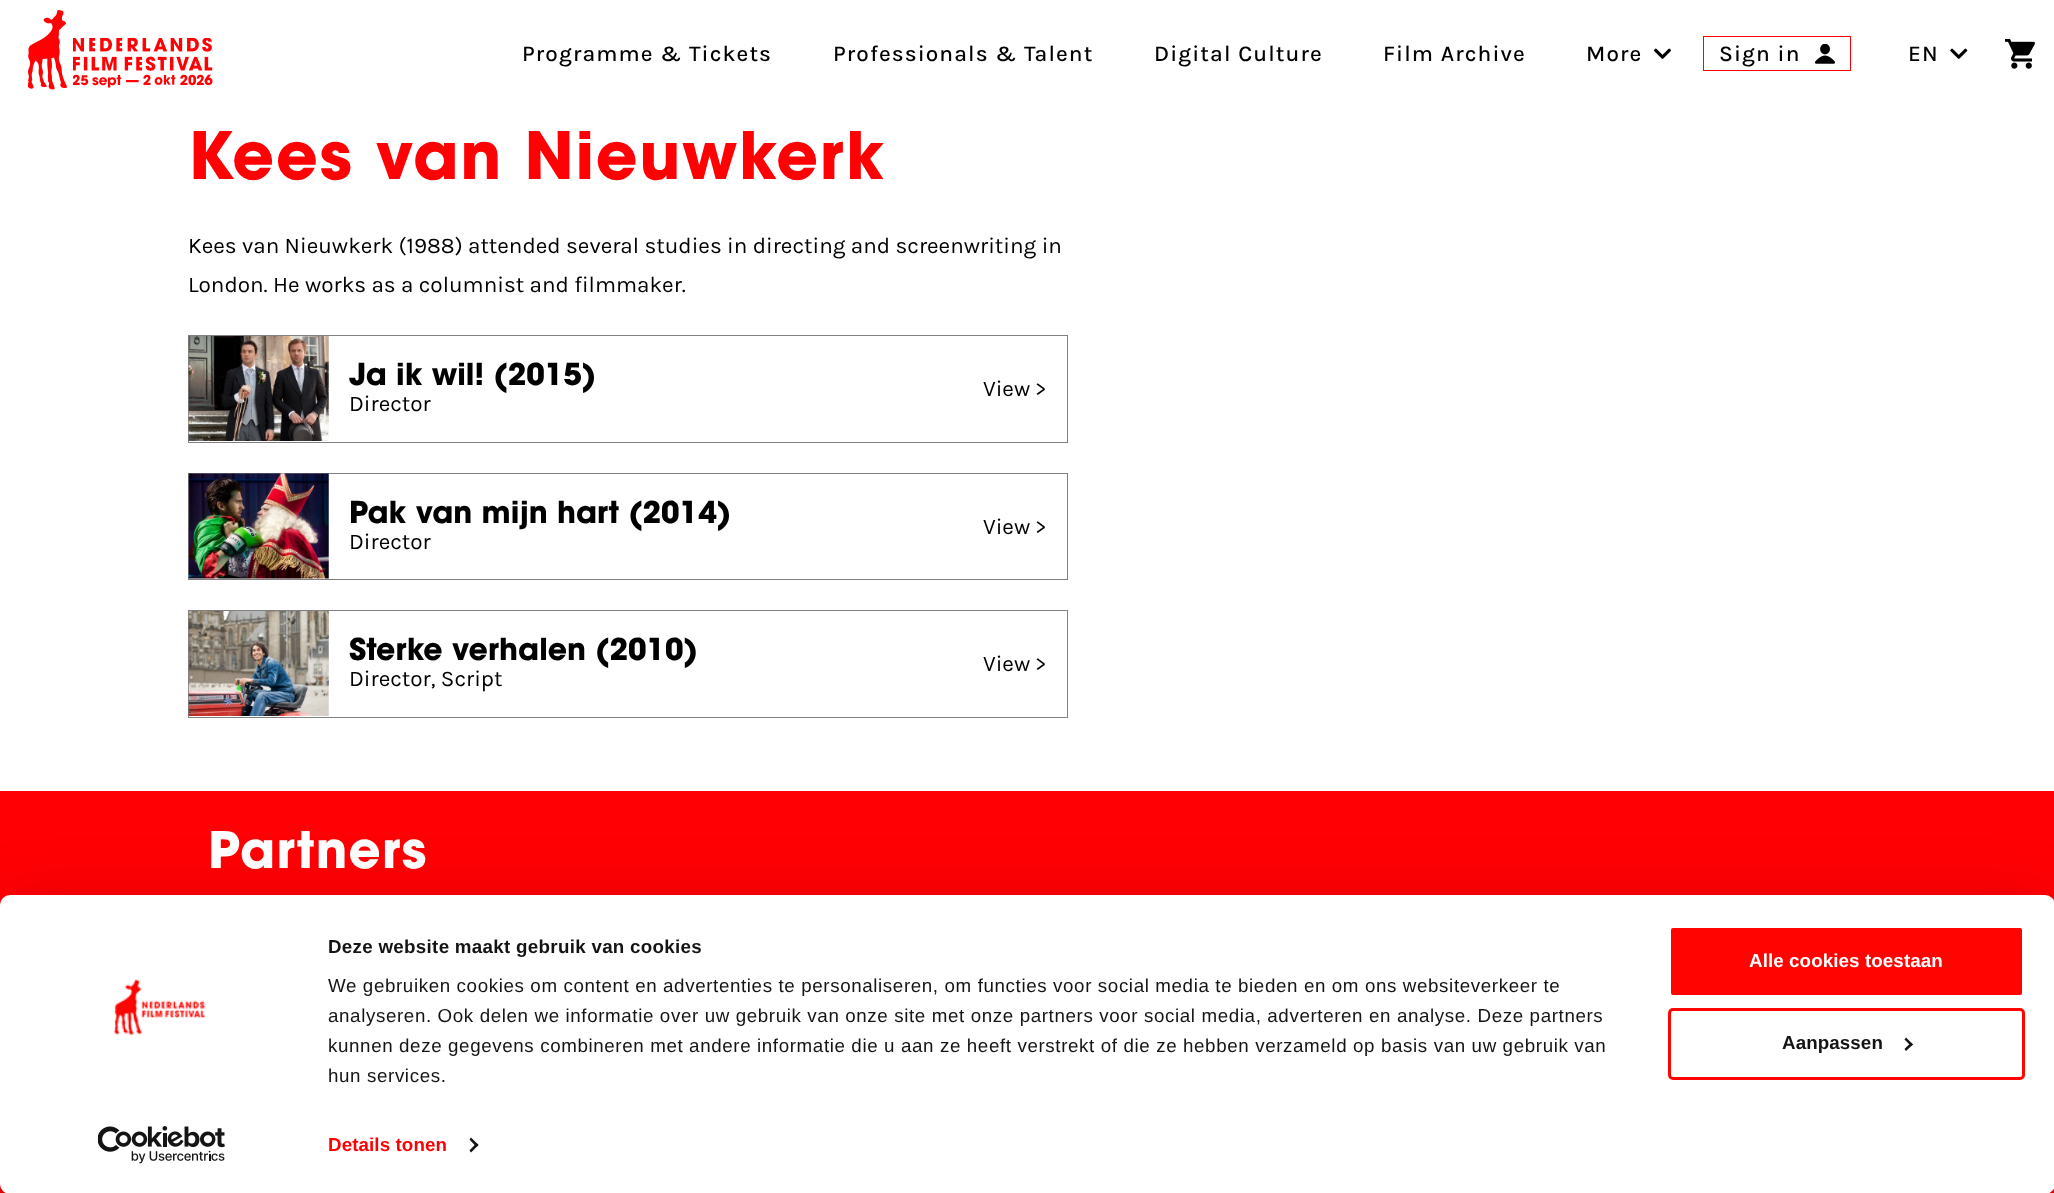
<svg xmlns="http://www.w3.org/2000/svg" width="2054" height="1193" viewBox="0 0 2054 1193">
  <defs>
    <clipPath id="clip1"><rect x="0" y="131" width="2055" height="657"/></clipPath>
    <filter id="blur1" x="-50%" y="-200%" width="200%" height="500%"><feGaussianBlur stdDeviation="44"/></filter>
  </defs>
  <rect width="100%" height="100%" fill="#ffffff"/>
  <image x="28" y="10" width="39" height="80" href="img1.png"/>
  <image x="73" y="38" width="140" height="50" href="img2.png"/>
  <text x="522" y="61" font-family="Karla" font-size="22.5" font-weight="500" letter-spacing="1.1" fill="#000000">Programme &amp; Tickets</text>
  <text x="833" y="61" font-family="Karla" font-size="22.5" font-weight="500" letter-spacing="1.1" fill="#000000">Professionals &amp; Talent</text>
  <text x="1154" y="61" font-family="Karla" font-size="22.5" font-weight="500" letter-spacing="1.1" fill="#000000">Digital Culture</text>
  <text x="1383" y="61" font-family="Karla" font-size="22.5" font-weight="500" letter-spacing="1.1" fill="#000000">Film Archive</text>
  <text x="1586" y="61" font-family="Karla" font-size="22.5" font-weight="500" letter-spacing="1.1" fill="#000000">More</text>
  <image x="1654" y="48" width="17" height="11" href="img3.png"/>
  <rect x="1703.5" y="36.5" width="147" height="34" fill="none" stroke="#ff0004"/>
  <text x="1719" y="61" font-family="Karla" font-size="22.5" font-weight="500" letter-spacing="1.1" fill="#000000">Sign in</text>
  <image x="1815" y="44" width="20" height="20" href="img4.png"/>
  <text x="1908" y="61" font-family="Karla" font-size="22.5" font-weight="500" letter-spacing="1.1" fill="#000000">EN</text>
  <image x="1950" y="48" width="18" height="11" href="img5.png"/>
  <image x="2005" y="39" width="30" height="30" href="img6.png"/>
  <g clip-path="url(#clip1)">
    <text x="188" y="179" font-family="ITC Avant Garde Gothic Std" font-size="65" font-weight="bold" letter-spacing="1.6" fill="#ff0004">Kees van Nieuwkerk</text>
  </g>
  <text x="188" y="253" font-family="Karla" font-size="22.5" fill="#000000">Kees van Nieuwkerk (1988) attended several studies in directing and screenwriting in</text>
  <text x="188" y="292" font-family="Karla" font-size="22.5" fill="#000000">London. He works as a columnist and filmmaker.</text>
  <rect x="188.5" y="335.5" width="879" height="107" fill="none" stroke="#808080"/>
  <image x="188" y="336" width="141" height="105" href="img7.png"/>
  <text x="349" y="385" font-family="ITC Avant Garde Gothic Std" font-size="30" font-weight="bold" fill="#000000">Ja ik wil! (2015)</text>
  <text x="349" y="411" font-family="Karla" font-size="22.5" fill="#000000">Director</text>
  <text x="983" y="396" font-family="Karla" font-size="22.5" fill="#000000">View &gt;</text>
  <rect x="188.5" y="473.5" width="879" height="106" fill="none" stroke="#808080"/>
  <image x="188" y="473" width="141" height="106" href="img8.png"/>
  <text x="349" y="523" font-family="ITC Avant Garde Gothic Std" font-size="30" font-weight="bold" fill="#000000">Pak van mijn hart (2014)</text>
  <text x="349" y="549" font-family="Karla" font-size="22.5" fill="#000000">Director</text>
  <text x="983" y="534" font-family="Karla" font-size="22.5" fill="#000000">View &gt;</text>
  <rect x="188.5" y="610.5" width="879" height="107" fill="none" stroke="#808080"/>
  <image x="188" y="611" width="141" height="105" href="img9.png"/>
  <text x="349" y="660" font-family="ITC Avant Garde Gothic Std" font-size="30" font-weight="bold" fill="#000000">Sterke verhalen (2010)</text>
  <text x="349" y="686" font-family="Karla" font-size="22.5" fill="#000000">Director, Script</text>
  <text x="983" y="671" font-family="Karla" font-size="22.5" fill="#000000">View &gt;</text>
  <rect x="0" y="791" width="2054" height="402" fill="#ff0004"/>
  <text x="208" y="868" font-family="ITC Avant Garde Gothic Std" font-size="50" font-weight="bold" letter-spacing="1.25" fill="#ffffff">Partners</text>
  <rect x="0" y="933" width="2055" height="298" rx="10" fill="#000000" fill-opacity="0.3" filter="url(#blur1)"/>
  <rect x="0" y="895" width="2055" height="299" rx="10" fill="#ffffff"/>
  <image x="113" y="979" width="93" height="56" href="img10.png"/>
  <image x="98" y="1126" width="127" height="38" href="img11.png"/>
  <text x="328" y="953" font-family="Liberation Sans" font-size="18.75" font-weight="bold" letter-spacing="0.3" fill="#141414">Deze website maakt gebruik van cookies</text>
  <text x="328" y="992" font-family="Liberation Sans" font-size="18.75" letter-spacing="0.62" fill="#141414">We gebruiken cookies om content en advertenties te personaliseren, om functies voor social media te bieden en om ons websiteverkeer te</text>
  <text x="328" y="1022" font-family="Liberation Sans" font-size="18.75" letter-spacing="0.62" fill="#141414">analyseren. Ook delen we informatie over uw gebruik van onze site met onze partners voor social media, adverteren en analyse. Deze partners</text>
  <text x="328" y="1052" font-family="Liberation Sans" font-size="18.75" letter-spacing="0.62" fill="#141414">kunnen deze gegevens combineren met andere informatie die u aan ze heeft verstrekt of die ze hebben verzameld op basis van uw gebruik van</text>
  <text x="328" y="1082" font-family="Liberation Sans" font-size="18.75" letter-spacing="0.62" fill="#141414">hun services.</text>
  <text x="328" y="1151" font-family="Liberation Sans" font-size="18.75" font-weight="bold" letter-spacing="0.1" fill="#ff0004">Details tonen</text>
  <path d="M471 1137.5L478.5 1145L476.5 1147L469.5 1139.5Z" fill="#141414"/>
  <path d="M476.5 1143L478.5 1145L471 1152.5L469.5 1150.5Z" fill="#141414"/>
  <rect x="1669.5" y="926.5" width="354" height="70" rx="3.5" fill="#ff0400" stroke="#ffffff" stroke-width="3"/>
  <text x="1749" y="967" font-family="Liberation Sans" font-size="18.75" font-weight="bold" letter-spacing="0.1" fill="#ffffff">Alle cookies toestaan</text>
  <rect x="1669.5" y="1009.5" width="354" height="69" rx="3.5" fill="none" stroke="#ff0400" stroke-width="3"/>
  <text x="1782" y="1049" font-family="Liberation Sans" font-size="18.75" font-weight="bold" letter-spacing="0.1" fill="#141414">Aanpassen</text>
  <path d="M1906 1037.5L1913 1044.5L1911 1046L1904.5 1039.5Z" fill="#141414"/>
  <path d="M1911 1042.5L1913 1044.5L1906 1051L1904.5 1049Z" fill="#141414"/>
</svg>
